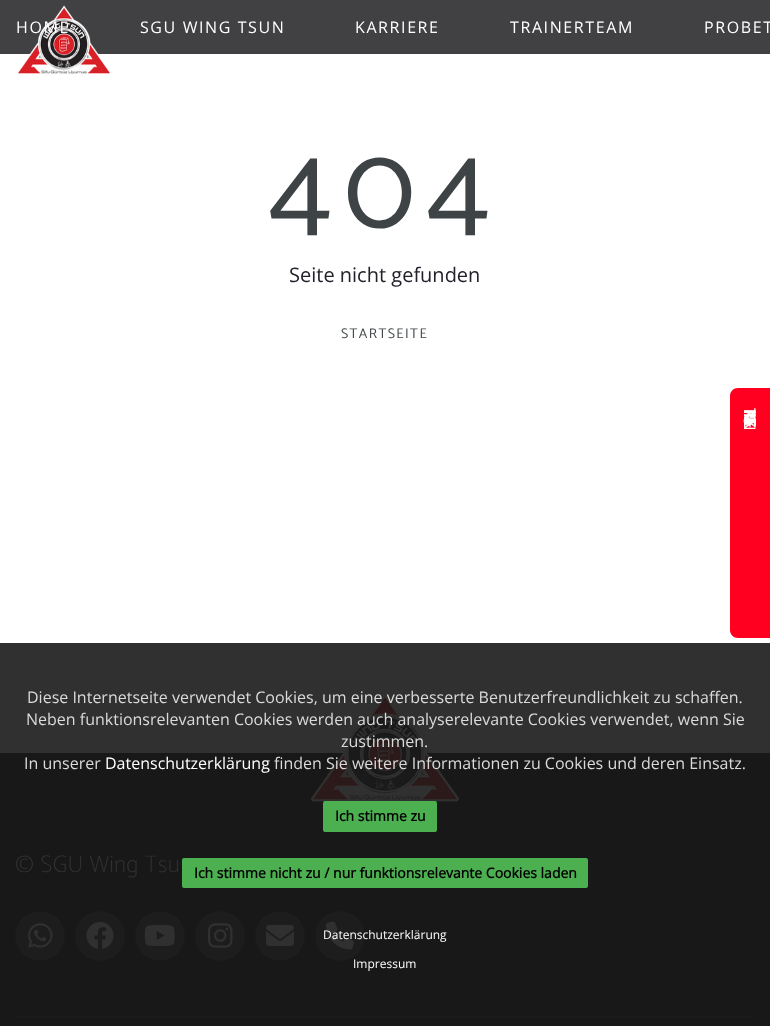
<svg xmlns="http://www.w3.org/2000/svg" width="770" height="1026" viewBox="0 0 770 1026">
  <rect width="100%" height="100%" fill="#ffffff"/>
  <rect x="0" y="643" width="770" height="110" fill="#303030"/>
  <rect x="0" y="0" width="770" height="54" fill="#414043"/>
  <image x="18" y="5" width="92" height="70" href="img1.png"/>
  <text x="16" y="33" font-family="Open Sans" font-size="16" letter-spacing="1.6" fill="#ffffff">HOME</text>
  <text x="140" y="33" font-family="Open Sans" font-size="16" letter-spacing="1.6" fill="#ffffff">SGU WING TSUN</text>
  <text x="355" y="33" font-family="Open Sans" font-size="16" letter-spacing="1.6" fill="#ffffff">KARRIERE</text>
  <text x="510" y="33" font-family="Open Sans" font-size="16" letter-spacing="1.6" fill="#ffffff">TRAINERTEAM</text>
  <text x="704" y="33" font-family="Open Sans" font-size="16" letter-spacing="1.6" fill="#ffffff">PROBET</text>
  <text x="269" y="227" font-family="Catamaran" font-size="120" letter-spacing="12" fill="#3e4446">404</text>
  <text x="289" y="282" font-family="Open Sans" font-size="20" fill="#21222a">Seite nicht gefunden</text>
  <text x="341" y="338" font-family="Catamaran" font-size="14" letter-spacing="1.4" fill="#3e4446">STARTSEITE</text>
  <path d="M738 388H770V638H738C733.5 638 730 634.5 730 630V396C730 391.5 733.5 388 738 388Z" fill="#ff0021"/>
  <text x="744" y="408" transform="rotate(90 744 408)" font-family="Open Sans" font-size="16" letter-spacing="-8" fill="#ffffff">TRAININGSZEITEN</text>
  <rect x="0" y="753" width="770" height="273" fill="#181818"/>
  <image x="310" y="697" width="150" height="105" href="img2.png"/>
  <text x="15" y="872" font-family="Catamaran" font-size="24" font-weight="100" letter-spacing="0.25" fill="#303030">© SGU Wing Tsu</text>
  <circle cx="40" cy="936" r="25" fill="#1d1d1e"/>
  <image x="28" y="923" width="25" height="25" href="img3.png"/>
  <circle cx="100" cy="936" r="25" fill="#1d1d1e"/>
  <image x="86" y="921" width="28" height="28" href="img4.png"/>
  <circle cx="160" cy="936" r="25" fill="#1d1d1e"/>
  <image x="144" y="925" width="31" height="21" href="img5.png"/>
  <circle cx="220" cy="936" r="25" fill="#1d1d1e"/>
  <image x="208" y="923" width="25" height="25" href="img6.png"/>
  <circle cx="280" cy="936" r="25" fill="#1d1d1e"/>
  <image x="266" y="925" width="28" height="21" href="img7.png"/>
  <circle cx="340" cy="936" r="25" fill="#1d1d1e"/>
  <image x="326" y="921" width="28" height="29" href="img8.png"/>
  <rect x="15" y="1016" width="740" height="1" fill="#1b1b1b"/>
  <text x="27" y="703" font-family="Open Sans" font-size="16" fill="#dadada">Diese Internetseite verwendet Cookies, um eine verbesserte Benutzerfreundlichkeit zu schaffen.</text>
  <text x="26" y="725" font-family="Open Sans" font-size="16" fill="#dadada">Neben funktionsrelevanten Cookies werden auch analyserelevante Cookies verwendet, wenn Sie</text>
  <text x="341" y="747" font-family="Open Sans" font-size="16" fill="#dadada">zustimmen.</text>
  <text x="24" y="769" font-family="Open Sans" font-size="16" fill="#dadada">In unserer</text>
  <text x="105" y="769" font-family="Open Sans" font-size="16" fill="#ffffff">Datenschutzerklärung</text>
  <text x="274" y="769" font-family="Open Sans" font-size="16" fill="#dadada">finden Sie weitere Informationen zu Cookies und deren Einsatz.</text>
  <rect x="323" y="801" width="114" height="31" rx="2" fill="#4caf50"/>
  <text x="335" y="821" font-family="Open Sans" font-size="14" font-weight="bold" fill="#000000">Ich stimme zu</text>
  <rect x="182" y="858" width="406" height="30" rx="2" fill="#4caf50"/>
  <text x="194" y="878" font-family="Open Sans" font-size="14" font-weight="bold" fill="#000000">Ich stimme nicht zu / nur funktionsrelevante Cookies laden</text>
  <text x="323" y="939" font-family="Open Sans" font-size="12" fill="#ffffff">Datenschutzerklärung</text>
  <text x="353" y="968" font-family="Open Sans" font-size="12" fill="#ffffff">Impressum</text>
</svg>
